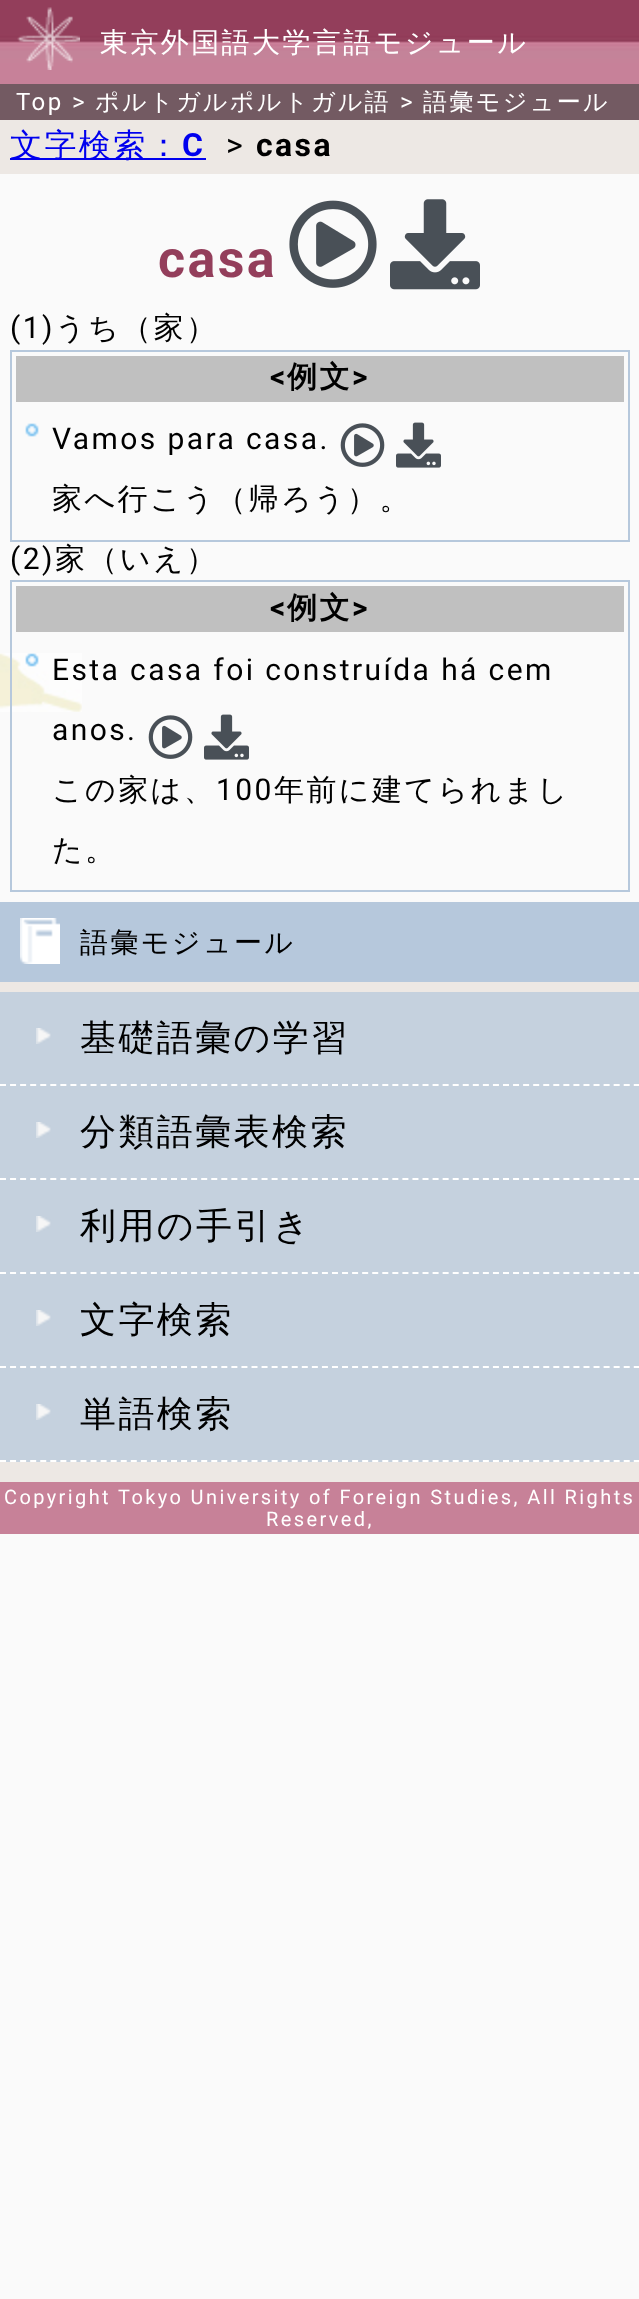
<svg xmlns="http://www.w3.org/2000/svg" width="639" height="2299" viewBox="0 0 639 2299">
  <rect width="100%" height="100%" fill="#fafafa"/>
  <image x="0" y="653" width="82" height="59" href="img1.png"/>
  <image x="0" y="0" width="639" height="84" href="img2.png"/>
  <image x="17" y="7" width="63" height="63" href="img3.png"/>
  <text x="100" y="52" font-family="WenQuanYi Zen Hei" font-size="28" font-weight="500" letter-spacing="2.4" fill="#ffffff">東京外国語大学言語モジュール</text>
  <rect x="0" y="84" width="639" height="36" fill="#735a62"/>
  <text x="16" y="110" font-family="Roboto" font-size="24" letter-spacing="2.4" fill="#ffffff">Top &gt;</text>
  <text x="95" y="110" font-family="WenQuanYi Zen Hei" font-size="24" font-weight="500" letter-spacing="2.4" fill="#ffffff">ポルトガルポルトガル語</text>
  <text x="400" y="110" font-family="Roboto" font-size="24" letter-spacing="2.4" fill="#ffffff">&gt;</text>
  <text x="423" y="110" font-family="WenQuanYi Zen Hei" font-size="24" font-weight="500" letter-spacing="2.4" fill="#ffffff">語彙モジュール</text>
  <rect x="0" y="120" width="639" height="54" fill="#ede8e4"/>
  <rect x="10" y="158" width="196" height="2" fill="#0000ee"/>
  <text x="10" y="156" font-family="WenQuanYi Zen Hei" font-size="32" font-weight="500" letter-spacing="2.4" fill="#0000ee">文字検索：</text>
  <text x="182" y="156" font-family="Roboto" font-size="32" font-weight="bold" letter-spacing="2.4" fill="#0000ee">C</text>
  <text x="226" y="156" font-family="Roboto" font-size="32" letter-spacing="2.4" fill="#000000">&gt;</text>
  <text x="256" y="156" font-family="Roboto" font-size="32" font-weight="bold" letter-spacing="2.4" fill="#000000">casa</text>
  <text x="158" y="277" font-family="Roboto" font-size="52" font-weight="bold" letter-spacing="2.4" fill="#933e5b">casa</text>
  <image x="289" y="200" width="88" height="88" href="img4.png"/>
  <image x="390" y="199" width="90" height="91" href="img5.png"/>
  <text x="10" y="338" font-family="Roboto" font-size="30" letter-spacing="2.4" fill="#000000">(1)</text>
  <text x="55" y="338" font-family="WenQuanYi Zen Hei" font-size="30" font-weight="500" letter-spacing="2.4" fill="#000000">うち（家）</text>
  <rect x="11" y="351" width="618" height="190" fill="none" stroke="#b6c8dc" stroke-width="2"/>
  <rect x="16" y="356" width="608" height="46" fill="#c0c0c0"/>
  <text x="270" y="387" font-family="Roboto" font-size="30" font-weight="bold" letter-spacing="2.4" fill="#000000">&lt;</text>
  <text x="287" y="387" font-family="WenQuanYi Zen Hei" font-size="30" font-weight="bold" letter-spacing="2.4" fill="#000000">例文</text>
  <text x="352" y="387" font-family="Roboto" font-size="30" font-weight="bold" letter-spacing="2.4" fill="#000000">&gt;</text>
  <image x="25" y="423" width="14" height="14" href="img6.png"/>
  <text x="52" y="449" font-family="Roboto" font-size="30" letter-spacing="2.4" fill="#000000">Vamos para casa.</text>
  <image x="340" y="423" width="45" height="44" href="img7.png"/>
  <image x="396" y="422" width="45" height="46" href="img8.png"/>
  <text x="52" y="509" font-family="WenQuanYi Zen Hei" font-size="30" font-weight="500" letter-spacing="2.4" fill="#000000">家へ行こう（帰ろう）。</text>
  <text x="10" y="569" font-family="Roboto" font-size="30" letter-spacing="2.4" fill="#000000">(2)</text>
  <text x="55" y="569" font-family="WenQuanYi Zen Hei" font-size="30" font-weight="500" letter-spacing="2.4" fill="#000000">家（いえ）</text>
  <rect x="11" y="581" width="618" height="310" fill="none" stroke="#b6c8dc" stroke-width="2"/>
  <rect x="16" y="586" width="608" height="46" fill="#c0c0c0"/>
  <text x="270" y="618" font-family="Roboto" font-size="30" font-weight="bold" letter-spacing="2.4" fill="#000000">&lt;</text>
  <text x="287" y="618" font-family="WenQuanYi Zen Hei" font-size="30" font-weight="bold" letter-spacing="2.4" fill="#000000">例文</text>
  <text x="352" y="618" font-family="Roboto" font-size="30" font-weight="bold" letter-spacing="2.4" fill="#000000">&gt;</text>
  <image x="25" y="653" width="14" height="14" href="img9.png"/>
  <text x="52" y="680" font-family="Roboto" font-size="30" letter-spacing="2.4" fill="#000000">Esta casa foi construída há cem</text>
  <text x="52" y="740" font-family="Roboto" font-size="30" letter-spacing="2.4" fill="#000000">anos.</text>
  <image x="148" y="715" width="45" height="44" href="img7.png"/>
  <image x="204" y="714" width="45" height="46" href="img8.png"/>
  <text x="52" y="800" font-family="WenQuanYi Zen Hei" font-size="30" font-weight="500" letter-spacing="2.4" fill="#000000">この家は、</text>
  <text x="216" y="800" font-family="Roboto" font-size="30" letter-spacing="2.4" fill="#000000">100</text>
  <text x="274" y="800" font-family="WenQuanYi Zen Hei" font-size="30" font-weight="500" letter-spacing="2.4" fill="#000000">年前に建てられまし</text>
  <text x="52" y="860" font-family="WenQuanYi Zen Hei" font-size="30" font-weight="500" letter-spacing="2.4" fill="#000000">た。</text>
  <rect x="0" y="982" width="639" height="500" fill="#ede8e4"/>
  <rect x="0" y="902" width="639" height="80" fill="#b6c8dc"/>
  <image x="20" y="918" width="40" height="46" href="img10.png"/>
  <text x="80" y="952" font-family="WenQuanYi Zen Hei" font-size="28" font-weight="500" letter-spacing="2.4" fill="#000000">語彙モジュール</text>
  <rect x="0" y="992" width="639" height="470" fill="#c5d1de"/>
  <image x="36" y="1028" width="15" height="16" href="img11.png"/>
  <path d="M0 1085H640" fill="none" stroke="#ffffff" stroke-width="2" stroke-dasharray="6 4.06"/>
  <text x="80" y="1050" font-family="WenQuanYi Zen Hei" font-size="36" font-weight="500" letter-spacing="2.4" fill="#000000">基礎語彙の学習</text>
  <image x="36" y="1122" width="15" height="16" href="img11.png"/>
  <path d="M0 1179H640" fill="none" stroke="#ffffff" stroke-width="2" stroke-dasharray="6 4.06"/>
  <text x="80" y="1144" font-family="WenQuanYi Zen Hei" font-size="36" font-weight="500" letter-spacing="2.4" fill="#000000">分類語彙表検索</text>
  <image x="36" y="1216" width="15" height="16" href="img11.png"/>
  <path d="M0 1273H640" fill="none" stroke="#ffffff" stroke-width="2" stroke-dasharray="6 4.06"/>
  <text x="80" y="1238" font-family="WenQuanYi Zen Hei" font-size="36" font-weight="500" letter-spacing="2.4" fill="#000000">利用の手引き</text>
  <image x="36" y="1310" width="15" height="16" href="img11.png"/>
  <path d="M0 1367H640" fill="none" stroke="#ffffff" stroke-width="2" stroke-dasharray="6 4.06"/>
  <text x="80" y="1332" font-family="WenQuanYi Zen Hei" font-size="36" font-weight="500" letter-spacing="2.4" fill="#000000">文字検索</text>
  <image x="36" y="1404" width="15" height="16" href="img11.png"/>
  <path d="M0 1461H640" fill="none" stroke="#ffffff" stroke-width="2" stroke-dasharray="6 4.06"/>
  <text x="80" y="1426" font-family="WenQuanYi Zen Hei" font-size="36" font-weight="500" letter-spacing="2.4" fill="#000000">単語検索</text>
  <rect x="0" y="1482" width="639" height="52" fill="#c78198"/>
  <text x="4" y="1504" font-family="Roboto" font-size="20" letter-spacing="2.4" fill="#ffffff">Copyright Tokyo University of Foreign Studies, All Rights</text>
  <text x="266" y="1526" font-family="Roboto" font-size="20" letter-spacing="2.4" fill="#ffffff">Reserved,</text>
</svg>
